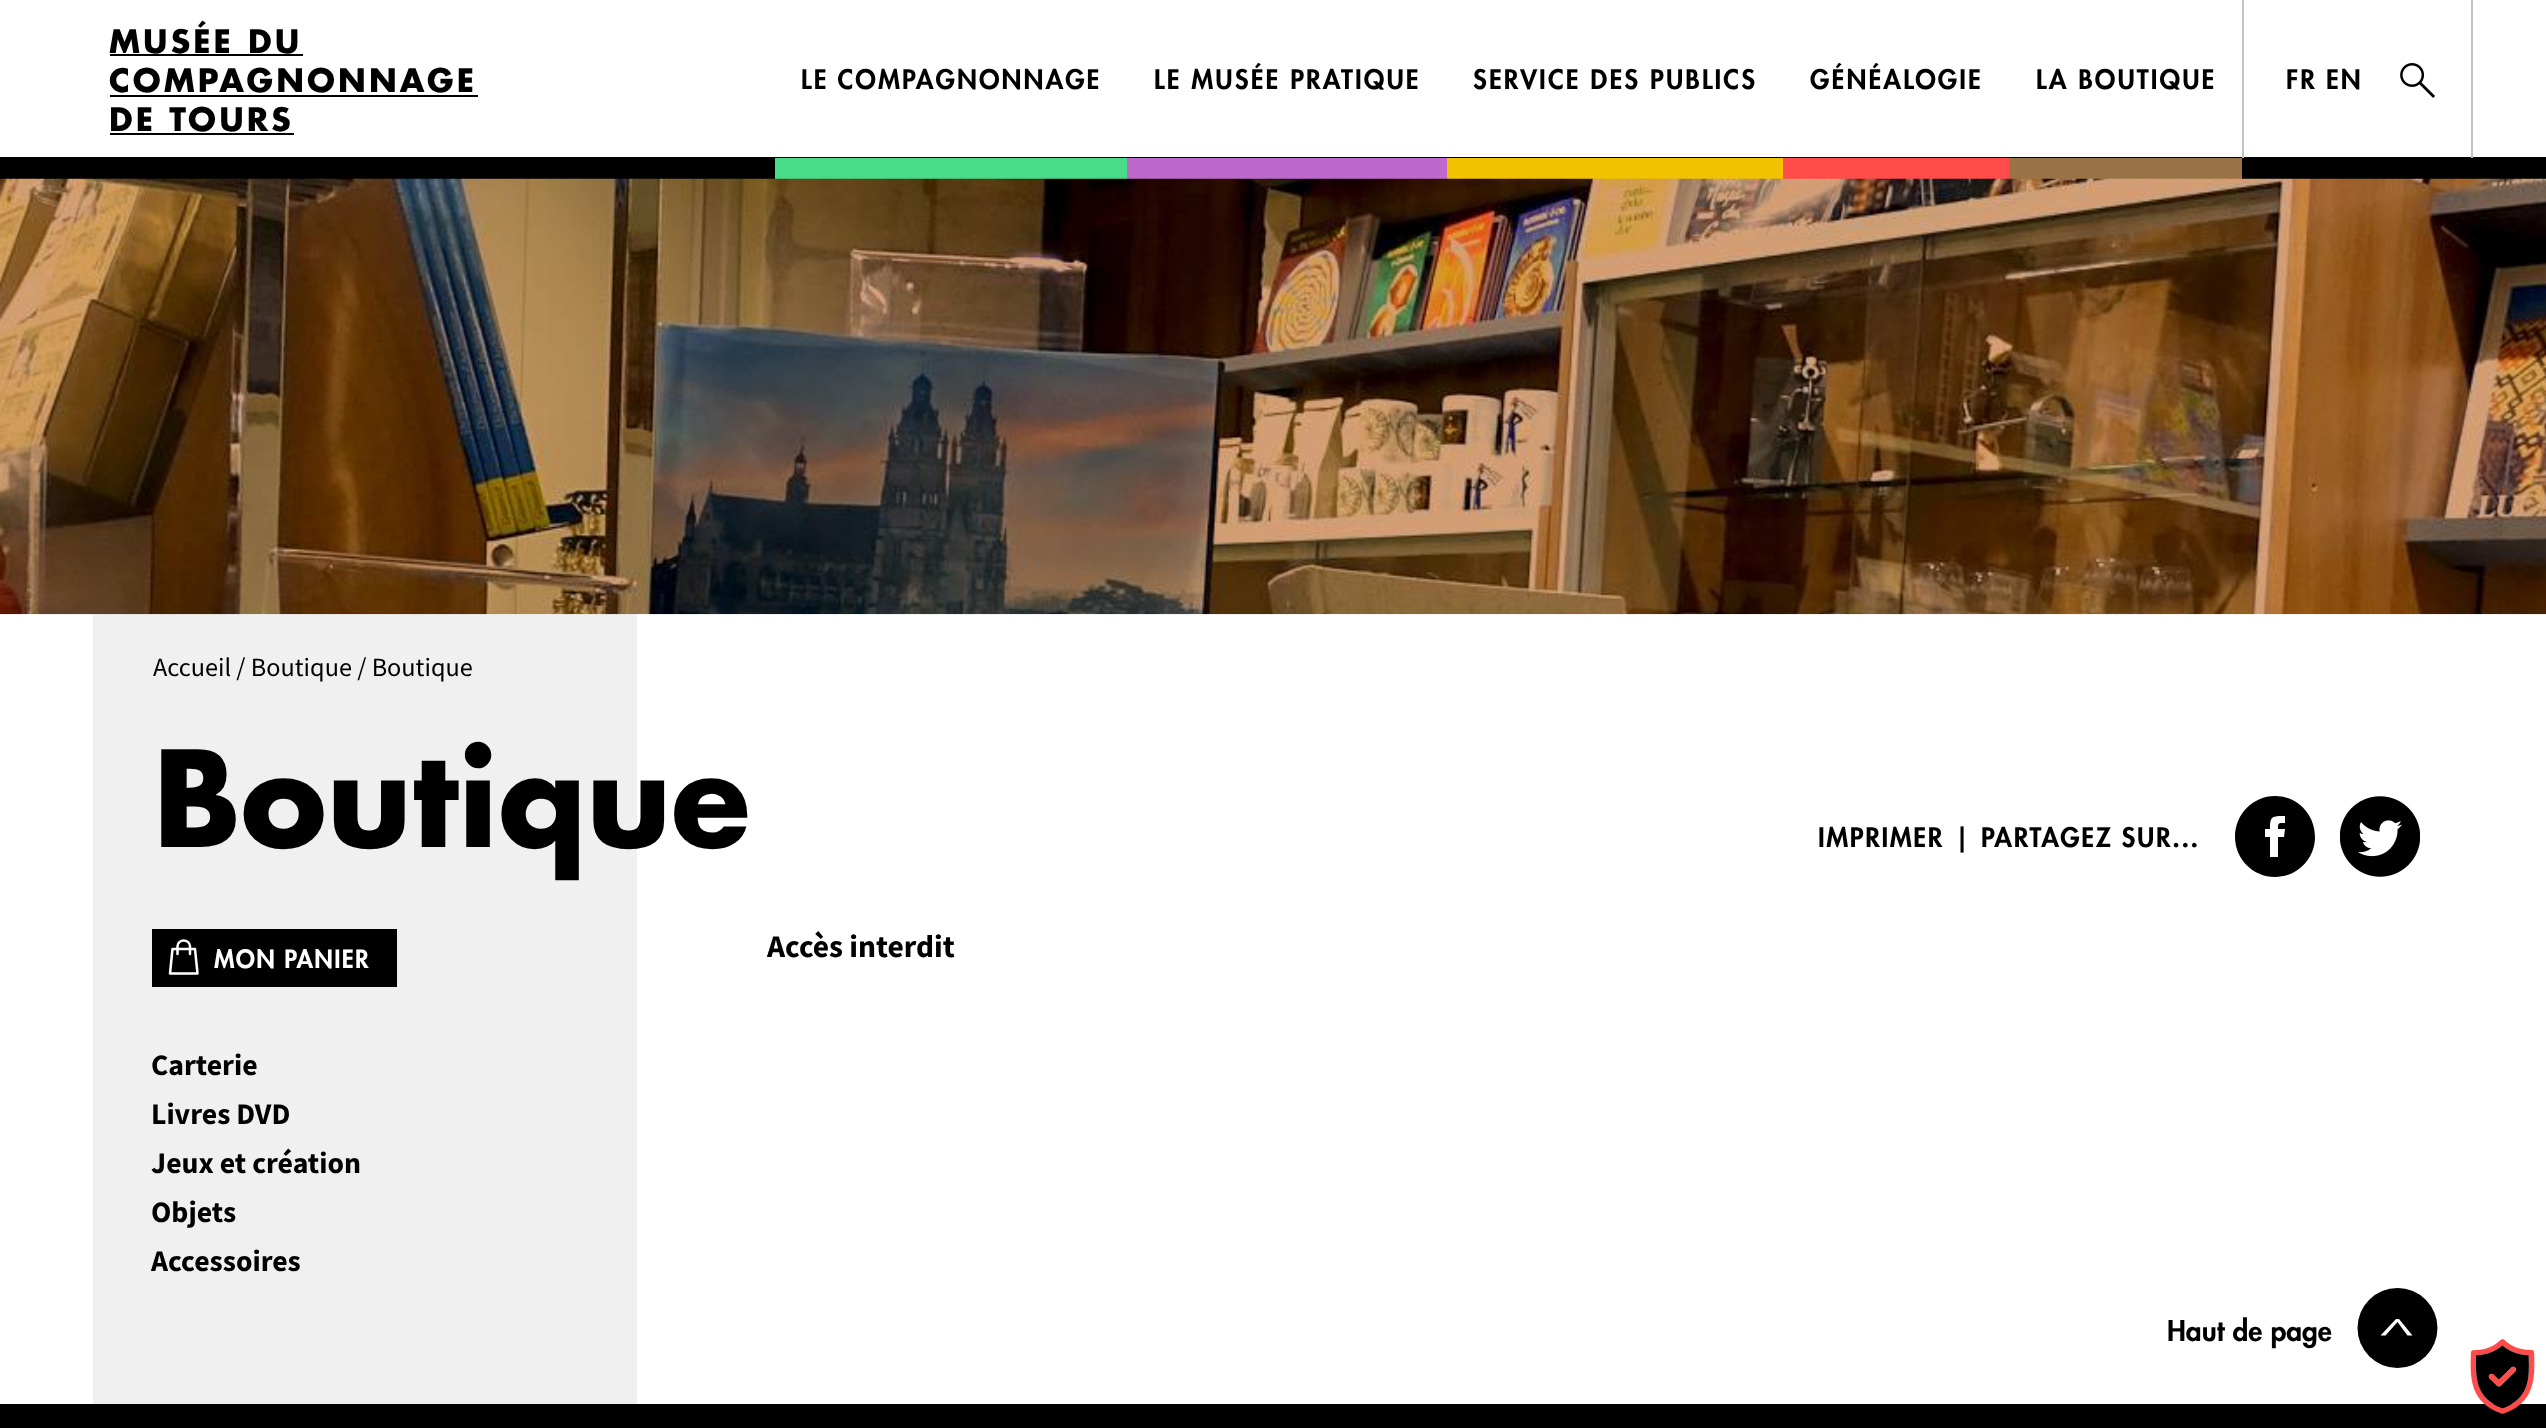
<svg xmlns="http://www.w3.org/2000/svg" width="2546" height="1428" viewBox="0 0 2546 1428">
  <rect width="100%" height="100%" fill="#ffffff"/>
  <rect x="0" y="157" width="2546" height="22" fill="#000000"/>
  <text x="109" y="53" font-family="Futura" font-size="31.5" font-weight="bold" letter-spacing="3.1" fill="#000000">MUSÉE DU</text>
  <rect x="110" y="54" width="193" height="2" fill="#000000"/>
  <text x="109" y="92" font-family="Futura" font-size="31.5" font-weight="bold" letter-spacing="3.1" fill="#000000">COMPAGNONNAGE</text>
  <rect x="110" y="95" width="368" height="2" fill="#000000"/>
  <text x="109" y="131" font-family="Futura" font-size="31.5" font-weight="bold" letter-spacing="3.1" fill="#000000">DE TOURS</text>
  <rect x="110" y="133" width="184" height="2" fill="#000000"/>
  <rect x="775" y="158" width="352" height="21" fill="#48db8a"/>
  <text x="801" y="89" font-family="Futura" font-size="26.25" font-weight="900" letter-spacing="2.1" fill="#000000">LE COMPAGNONNAGE</text>
  <rect x="1127" y="158" width="320" height="21" fill="#bd69cb"/>
  <text x="1154" y="89" font-family="Futura" font-size="26.25" font-weight="900" letter-spacing="2.1" fill="#000000">LE MUSÉE PRATIQUE</text>
  <rect x="1447" y="158" width="336" height="21" fill="#f1c200"/>
  <text x="1473" y="89" font-family="Futura" font-size="26.25" font-weight="900" letter-spacing="2.1" fill="#000000">SERVICE DES PUBLICS</text>
  <rect x="1783" y="158" width="226" height="21" fill="#ff4b4a"/>
  <text x="1810" y="89" font-family="Futura" font-size="26.25" font-weight="900" letter-spacing="2.1" fill="#000000">GÉNÉALOGIE</text>
  <rect x="2009" y="158" width="233" height="21" fill="#987346"/>
  <text x="2036" y="89" font-family="Futura" font-size="26.25" font-weight="900" letter-spacing="2.1" fill="#000000">LA BOUTIQUE</text>
  <rect x="2242" y="0" width="2" height="158" fill="#c3c3c3"/>
  <text x="2286" y="89" font-family="Futura" font-size="26.25" font-weight="900" letter-spacing="2" fill="#000000">FR</text>
  <text x="2326" y="89" font-family="Futura" font-size="26.25" font-weight="900" letter-spacing="2" fill="#000000">EN</text>
  <rect x="2471" y="0" width="2" height="158" fill="#c3c3c3"/>
  <image x="2400" y="63" width="35" height="35" href="img1.png"/>
  <rect x="93" y="614" width="544" height="790" fill="#f0f0f0"/>
  <image x="0" y="178" width="2546" height="437" href="img2.png"/>
  <text x="153" y="676" font-family="Source Sans Pro" font-size="26.25" fill="#000000">Accueil / Boutique / Boutique</text>
  <text x="153" y="847" font-family="Futura" font-size="129.5" font-weight="bold" fill="#000000">Boutique</text>
  <text x="1818" y="847" font-family="Futura" font-size="26.25" font-weight="900" letter-spacing="1.6" fill="#000000">IMPRIMER</text>
  <text x="1955" y="847" font-family="Futura" font-size="26.25" font-weight="900" letter-spacing="1.6" fill="#000000">|</text>
  <text x="1981" y="847" font-family="Futura" font-size="26.25" font-weight="900" letter-spacing="1.6" fill="#000000">PARTAGEZ SUR...</text>
  <path d="M2275 796C2253 796 2235 814 2235 837C2235 859 2253 877 2275 877C2297 877 2315 859 2315 837C2315 814 2297 796 2275 796ZM2284 837H2278V857H2270V837H2265V829H2270C2270 816 2272 816 2285 816V823C2278 823 2278 823 2278 829H2285Z" fill="#000001"/>
  <image x="2340" y="796" width="80" height="81" href="img3.png"/>
  <text x="767" y="957" font-family="Source Sans Pro" font-size="31.5" font-weight="bold" fill="#000000">Accès interdit</text>
  <rect x="152" y="929" width="245" height="58" fill="#000000"/>
  <path d="M172.5 949H195L197.5 973.5H170Z" fill="none" stroke="#ffffff" stroke-width="2.5" stroke-linejoin="round"/>
  <path d="M177.5 954V946C177.5 943 180.5 940.5 183.5 940.5C187 940.5 190 943 190 946V954" fill="none" stroke="#ffffff" stroke-width="2.5" stroke-linecap="round" stroke-linejoin="round"/>
  <text x="214" y="968" font-family="Futura" font-size="24.5" font-weight="900" letter-spacing="1.25" fill="#ffffff">MON PANIER</text>
  <text x="151" y="1075" font-family="Source Sans Pro" font-size="29.75" font-weight="bold" fill="#000000">Carterie</text>
  <text x="151" y="1124" font-family="Source Sans Pro" font-size="29.75" font-weight="bold" fill="#000000">Livres DVD</text>
  <text x="151" y="1173" font-family="Source Sans Pro" font-size="29.75" font-weight="bold" fill="#000000">Jeux et création</text>
  <text x="151" y="1222" font-family="Source Sans Pro" font-size="29.75" font-weight="bold" fill="#000000">Objets</text>
  <text x="151" y="1271" font-family="Source Sans Pro" font-size="29.75" font-weight="bold" fill="#000000">Accessoires</text>
  <circle cx="2397.5" cy="1328" r="40" fill="#000000"/>
  <path d="M2407.5 1335.5L2397.5 1322L2385.5 1335.5H2380.5L2396 1319H2399L2412.5 1335.5Z" fill="#ffffff"/>
  <text x="2167" y="1341" font-family="Futura" font-size="28" font-weight="900" fill="#000000">Haut de page</text>
  <rect x="0" y="1404" width="2546" height="24" fill="#000000"/>
  <image x="2470" y="1339" width="65" height="75" href="img4.png"/>
</svg>
